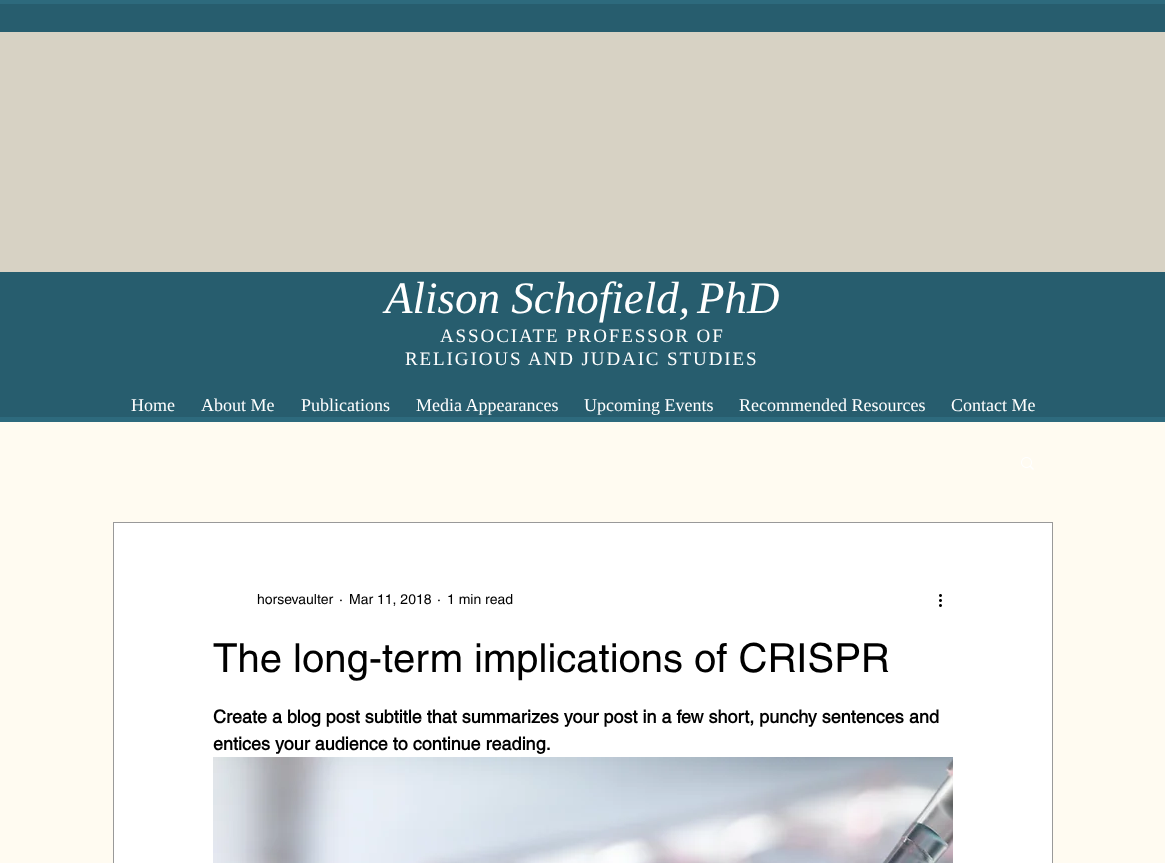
<svg xmlns="http://www.w3.org/2000/svg" width="1165" height="863" viewBox="0 0 1165 863">
  <rect width="100%" height="100%" fill="#fffbf1"/>
  <rect x="0" y="4" width="1165" height="413" fill="#275d6e"/>
  <rect x="0" y="0" width="1165" height="4" fill="#2d6a7d"/>
  <rect x="0" y="417" width="1165" height="5" fill="#2d6a7d"/>
  <rect x="0" y="32" width="1165" height="240" fill="#d7d2c4"/>
  <text x="385" y="313" font-family="Liberation Serif" font-size="45" font-style="italic" fill="#ffffff">Alison Schofield,</text>
  <text x="697" y="313" font-family="Liberation Serif" font-size="45" font-style="italic" fill="#ffffff">PhD</text>
  <text x="440" y="342" font-family="Liberation Serif" font-size="19" letter-spacing="1.9" fill="#ffffff">ASSOCIATE PROFESSOR OF</text>
  <text x="405" y="365" font-family="Liberation Serif" font-size="19" letter-spacing="1.9" fill="#ffffff">RELIGIOUS AND JUDAIC STUDIES</text>
  <text x="131" y="411" font-family="Liberation Serif" font-size="18" fill="#ffffff">Home</text>
  <text x="201" y="411" font-family="Liberation Serif" font-size="18" fill="#ffffff">About Me</text>
  <text x="301" y="411" font-family="Liberation Serif" font-size="18" fill="#ffffff">Publications</text>
  <text x="416" y="411" font-family="Liberation Serif" font-size="18" fill="#ffffff">Media Appearances</text>
  <text x="584" y="411" font-family="Liberation Serif" font-size="18" fill="#ffffff">Upcoming Events</text>
  <text x="739" y="411" font-family="Liberation Serif" font-size="18" fill="#ffffff">Recommended Resources</text>
  <text x="951" y="411" font-family="Liberation Serif" font-size="18" fill="#ffffff">Contact Me</text>
  <image x="1021" y="457" width="13" height="13" href="img1.png"/>
  <rect x="113.5" y="522.5" width="939" height="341" fill="#ffffff" stroke="#999999"/>
  <text x="257" y="604" font-family="helvetica" font-size="14" fill="#000000">horsevaulter</text>
  <text x="339" y="604" font-family="helvetica" font-size="14" fill="#000000">·</text>
  <text x="349" y="604" font-family="helvetica" font-size="14" fill="#000000">Mar 11, 2018</text>
  <text x="437" y="604" font-family="helvetica" font-size="14" fill="#000000">·</text>
  <text x="447" y="604" font-family="helvetica" font-size="14" fill="#000000">1 min read</text>
  <image x="939" y="594" width="3" height="13" href="img2.png"/>
  <text x="213" y="672" font-family="helvetica" font-size="40" fill="#000000">The long-term implications of CRISPR</text>
  <text x="213" y="723" font-family="helvetica" font-size="18" font-weight="bold" fill="#000000">Create a blog post subtitle that summarizes your post in a few short, punchy sentences and</text>
  <text x="213" y="750" font-family="helvetica" font-size="18" font-weight="bold" fill="#000000">entices your audience to continue reading.</text>
  <image x="213" y="757" width="740" height="106" href="img3.png"/>
</svg>
